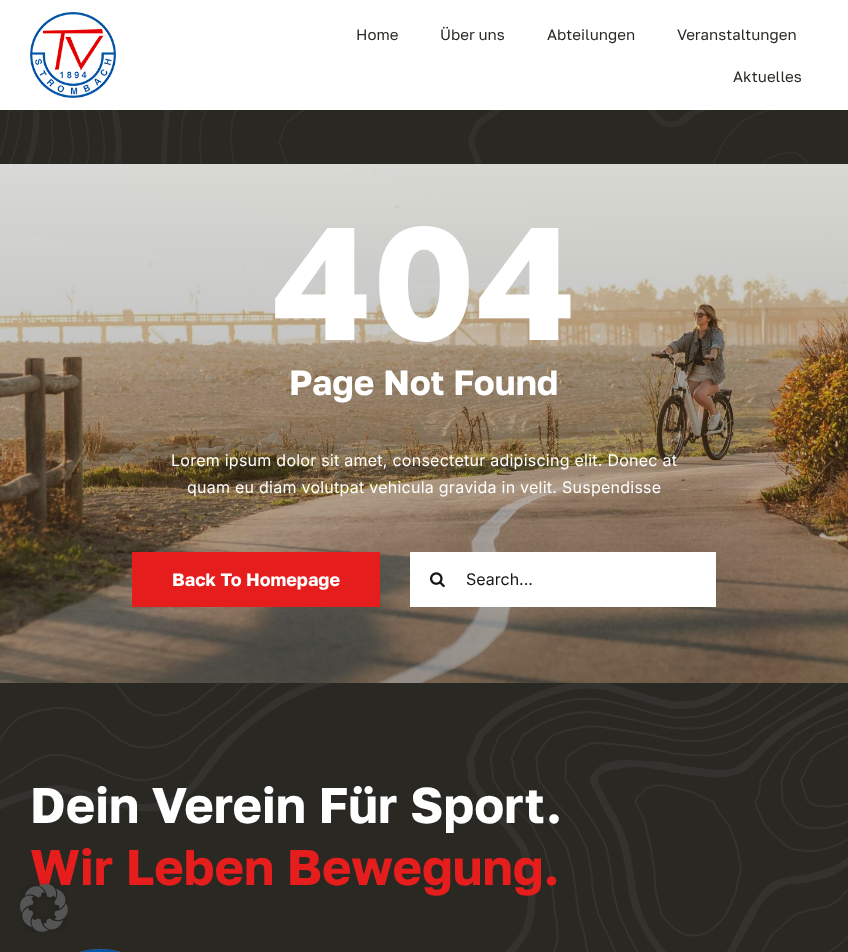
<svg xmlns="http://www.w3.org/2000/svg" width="848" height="952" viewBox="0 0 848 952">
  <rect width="100%" height="100%" fill="#ffffff"/>
  <image x="30" y="12" width="86" height="86" href="img1.png"/>
  <text x="356" y="40" font-family="Golos Text" font-size="15" fill="#292823">Home</text>
  <text x="440" y="40" font-family="Golos Text" font-size="15" fill="#292823">Über uns</text>
  <text x="547" y="40" font-family="Golos Text" font-size="15" fill="#292823">Abteilungen</text>
  <text x="677" y="40" font-family="Golos Text" font-size="15" fill="#292823">Veranstaltungen</text>
  <text x="733" y="82" font-family="Golos Text" font-size="15" fill="#292823">Aktuelles</text>
  <rect x="0" y="110" width="848" height="54" fill="#292823"/>
  <image x="0" y="110" width="808" height="54" href="img2.png"/>
  <image x="0" y="164" width="848" height="519" href="img3.png"/>
  <text x="272" y="340" font-family="Golos Text" font-size="160" font-weight="bold" fill="#ffffff">404</text>
  <text x="289" y="395" font-family="Golos Text" font-size="35" font-weight="bold" fill="#ffffff">Page Not Found</text>
  <text x="171" y="466" font-family="Inter" font-size="16" letter-spacing="0.25" fill="#ffffff">Lorem ipsum dolor sit amet, consectetur adipiscing elit. Donec at</text>
  <text x="187" y="493" font-family="Inter" font-size="16" letter-spacing="0.25" fill="#ffffff">quam eu diam volutpat vehicula gravida in velit. Suspendisse</text>
  <rect x="132" y="552" width="248" height="55" fill="#e61d1d"/>
  <text x="172" y="586" font-family="Golos Text" font-size="18" font-weight="bold" fill="#ffffff">Back To Homepage</text>
  <rect x="410" y="552" width="306" height="55" fill="#ffffff"/>
  <image x="430" y="572" width="15" height="16" href="img4.png"/>
  <text x="466" y="585" font-family="Inter" font-size="16" fill="#161616">Search...</text>
  <rect x="0" y="683" width="848" height="269" fill="#292823"/>
  <image x="0" y="683" width="848" height="269" href="img5.png"/>
  <text x="30" y="823" font-family="Golos Text" font-size="50" font-weight="bold" fill="#ffffff">Dein Verein Für Sport.</text>
  <text x="30" y="885" font-family="Golos Text" font-size="50" font-weight="bold" fill="#e61d1d">Wir Leben Bewegung.</text>
  <image x="80" y="949" width="40" height="3" href="img6.png"/>
  <image x="20" y="879" width="48" height="53" href="img7.png"/>
</svg>
